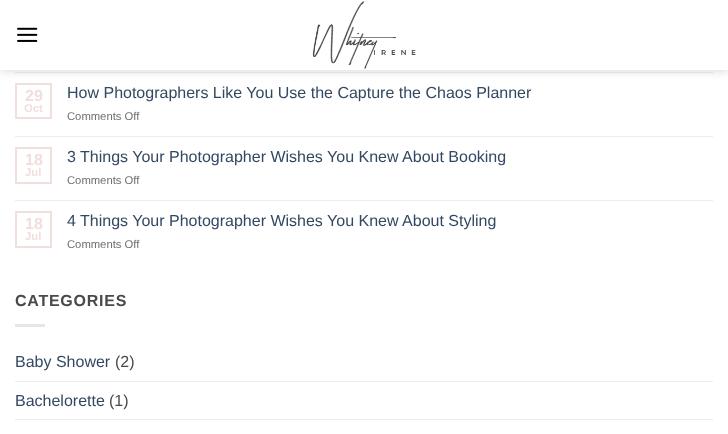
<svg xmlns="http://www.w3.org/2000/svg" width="728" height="434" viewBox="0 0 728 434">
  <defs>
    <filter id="blur1" x="-50%" y="-200%" width="200%" height="500%"><feGaussianBlur stdDeviation="5"/></filter>
  </defs>
  <rect width="100%" height="100%" fill="#ffffff"/>
  <rect x="15" y="72" width="698" height="1" fill="#ececec"/>
  <rect x="16" y="84" width="35" height="34" fill="none" stroke="#f0dfdc" stroke-width="2"/>
  <rect x="1" y="1" width="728" height="70" fill="#000000" fill-opacity="0.15" filter="url(#blur1)"/>
  <rect x="0" y="0" width="728" height="70" fill="#ffffff"/>
  <image x="17" y="27" width="21" height="15" href="img1.png"/>
  <image x="312" y="1" width="104" height="68" href="img2.png"/>
  <text x="25" y="101" font-family="Liberation Sans" font-size="16" font-weight="bold" fill="#f0dfdc">29</text>
  <text x="24" y="112" font-family="Liberation Sans" font-size="11.25" font-weight="bold" fill="#f0dfdc">Oct</text>
  <text x="67" y="98" font-family="Liberation Sans" font-size="16" fill="#334862">How Photographers Like You Use the Capture the Chaos Planner</text>
  <text x="67" y="120" font-family="Liberation Sans" font-size="11.25" fill="#6e6e6e">Comments Off</text>
  <rect x="15" y="136" width="698" height="1" fill="#ececec"/>
  <rect x="16" y="148" width="35" height="35" fill="none" stroke="#f0dfdc" stroke-width="2"/>
  <text x="25" y="165" font-family="Liberation Sans" font-size="16" font-weight="bold" fill="#f0dfdc">18</text>
  <text x="25" y="176" font-family="Liberation Sans" font-size="11.25" font-weight="bold" fill="#f0dfdc">Jul</text>
  <text x="67" y="162" font-family="Liberation Sans" font-size="16" fill="#334862">3 Things Your Photographer Wishes You Knew About Booking</text>
  <text x="67" y="184" font-family="Liberation Sans" font-size="11.25" fill="#6e6e6e">Comments Off</text>
  <rect x="15" y="200" width="698" height="1" fill="#ececec"/>
  <rect x="16" y="212" width="35" height="35" fill="none" stroke="#f0dfdc" stroke-width="2"/>
  <text x="25" y="229" font-family="Liberation Sans" font-size="16" font-weight="bold" fill="#f0dfdc">18</text>
  <text x="25" y="240" font-family="Liberation Sans" font-size="11.25" font-weight="bold" fill="#f0dfdc">Jul</text>
  <text x="67" y="226" font-family="Liberation Sans" font-size="16" fill="#334862">4 Things Your Photographer Wishes You Knew About Styling</text>
  <text x="67" y="248" font-family="Liberation Sans" font-size="11.25" fill="#6e6e6e">Comments Off</text>
  <text x="15" y="306" font-family="Liberation Sans" font-size="16" font-weight="bold" letter-spacing="0.75" fill="#4a4a4a">CATEGORIES</text>
  <rect x="15" y="324" width="30" height="3" fill="#e6e6e6"/>
  <text x="15" y="367" font-family="Liberation Sans" font-size="16" fill="#334862">Baby Shower</text>
  <text x="115" y="367" font-family="Liberation Sans" font-size="16" fill="#4a4a4a">(2)</text>
  <rect x="15" y="381" width="698" height="1" fill="#ececec"/>
  <text x="15" y="406" font-family="Liberation Sans" font-size="16" fill="#334862">Bachelorette</text>
  <text x="109" y="406" font-family="Liberation Sans" font-size="16" fill="#4a4a4a">(1)</text>
  <rect x="15" y="419" width="698" height="1" fill="#ececec"/>
</svg>
